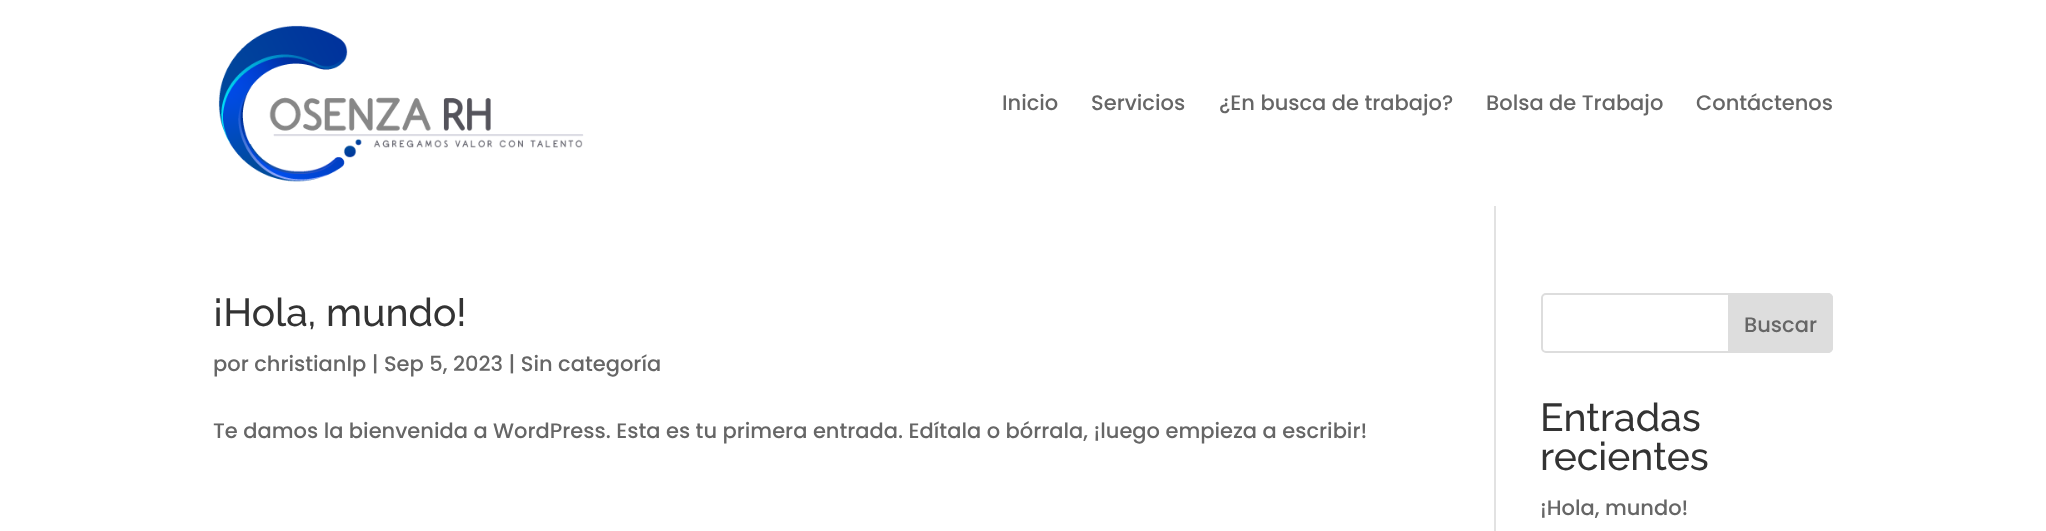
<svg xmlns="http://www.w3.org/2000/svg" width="2046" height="531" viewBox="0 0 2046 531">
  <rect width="100%" height="100%" fill="#ffffff"/>
  <image x="218" y="25" width="366" height="157" href="img1.png"/>
  <text x="1002" y="110" font-family="Poppins" font-size="21" font-weight="500" fill="#666666">Inicio</text>
  <text x="1091" y="110" font-family="Poppins" font-size="21" font-weight="500" fill="#666666">Servicios</text>
  <text x="1219" y="110" font-family="Poppins" font-size="21" font-weight="500" fill="#666666">¿En busca de trabajo?</text>
  <text x="1486" y="110" font-family="Poppins" font-size="21" font-weight="500" fill="#666666">Bolsa de Trabajo</text>
  <text x="1696" y="110" font-family="Poppins" font-size="21" font-weight="500" fill="#666666">Contáctenos</text>
  <rect x="1494" y="206" width="2" height="325" fill="#e2e2e2"/>
  <text x="213" y="326" font-family="Raleway" font-size="39" font-weight="500" fill="#333333">¡Hola, mundo!</text>
  <text x="213" y="371" font-family="Poppins" font-size="21" font-weight="500" fill="#666666">por christianlp | Sep 5, 2023 | Sin categoría</text>
  <text x="213" y="438" font-family="Poppins" font-size="21" font-weight="500" fill="#666666">Te damos la bienvenida a WordPress. Esta es tu primera entrada. Edítala o bórrala, ¡luego empieza a escribir!</text>
  <rect x="1542" y="294" width="290" height="58" rx="4" fill="none" stroke="#dddddd" stroke-width="2"/>
  <path d="M1729 294H1828C1830 294 1832 296 1832 298V348C1832 350 1830 352 1828 352H1729Z" fill="#dddddd" stroke="#dddddd" stroke-width="2"/>
  <text x="1744" y="332" font-family="Poppins" font-size="21" font-weight="500" fill="#666666">Buscar</text>
  <text x="1540" y="431" font-family="Raleway" font-size="39" font-weight="500" fill="#333333">Entradas</text>
  <text x="1540" y="470" font-family="Raleway" font-size="39" font-weight="500" fill="#333333">recientes</text>
  <text x="1540" y="515" font-family="Poppins" font-size="21" font-weight="500" fill="#666666">¡Hola, mundo!</text>
</svg>
